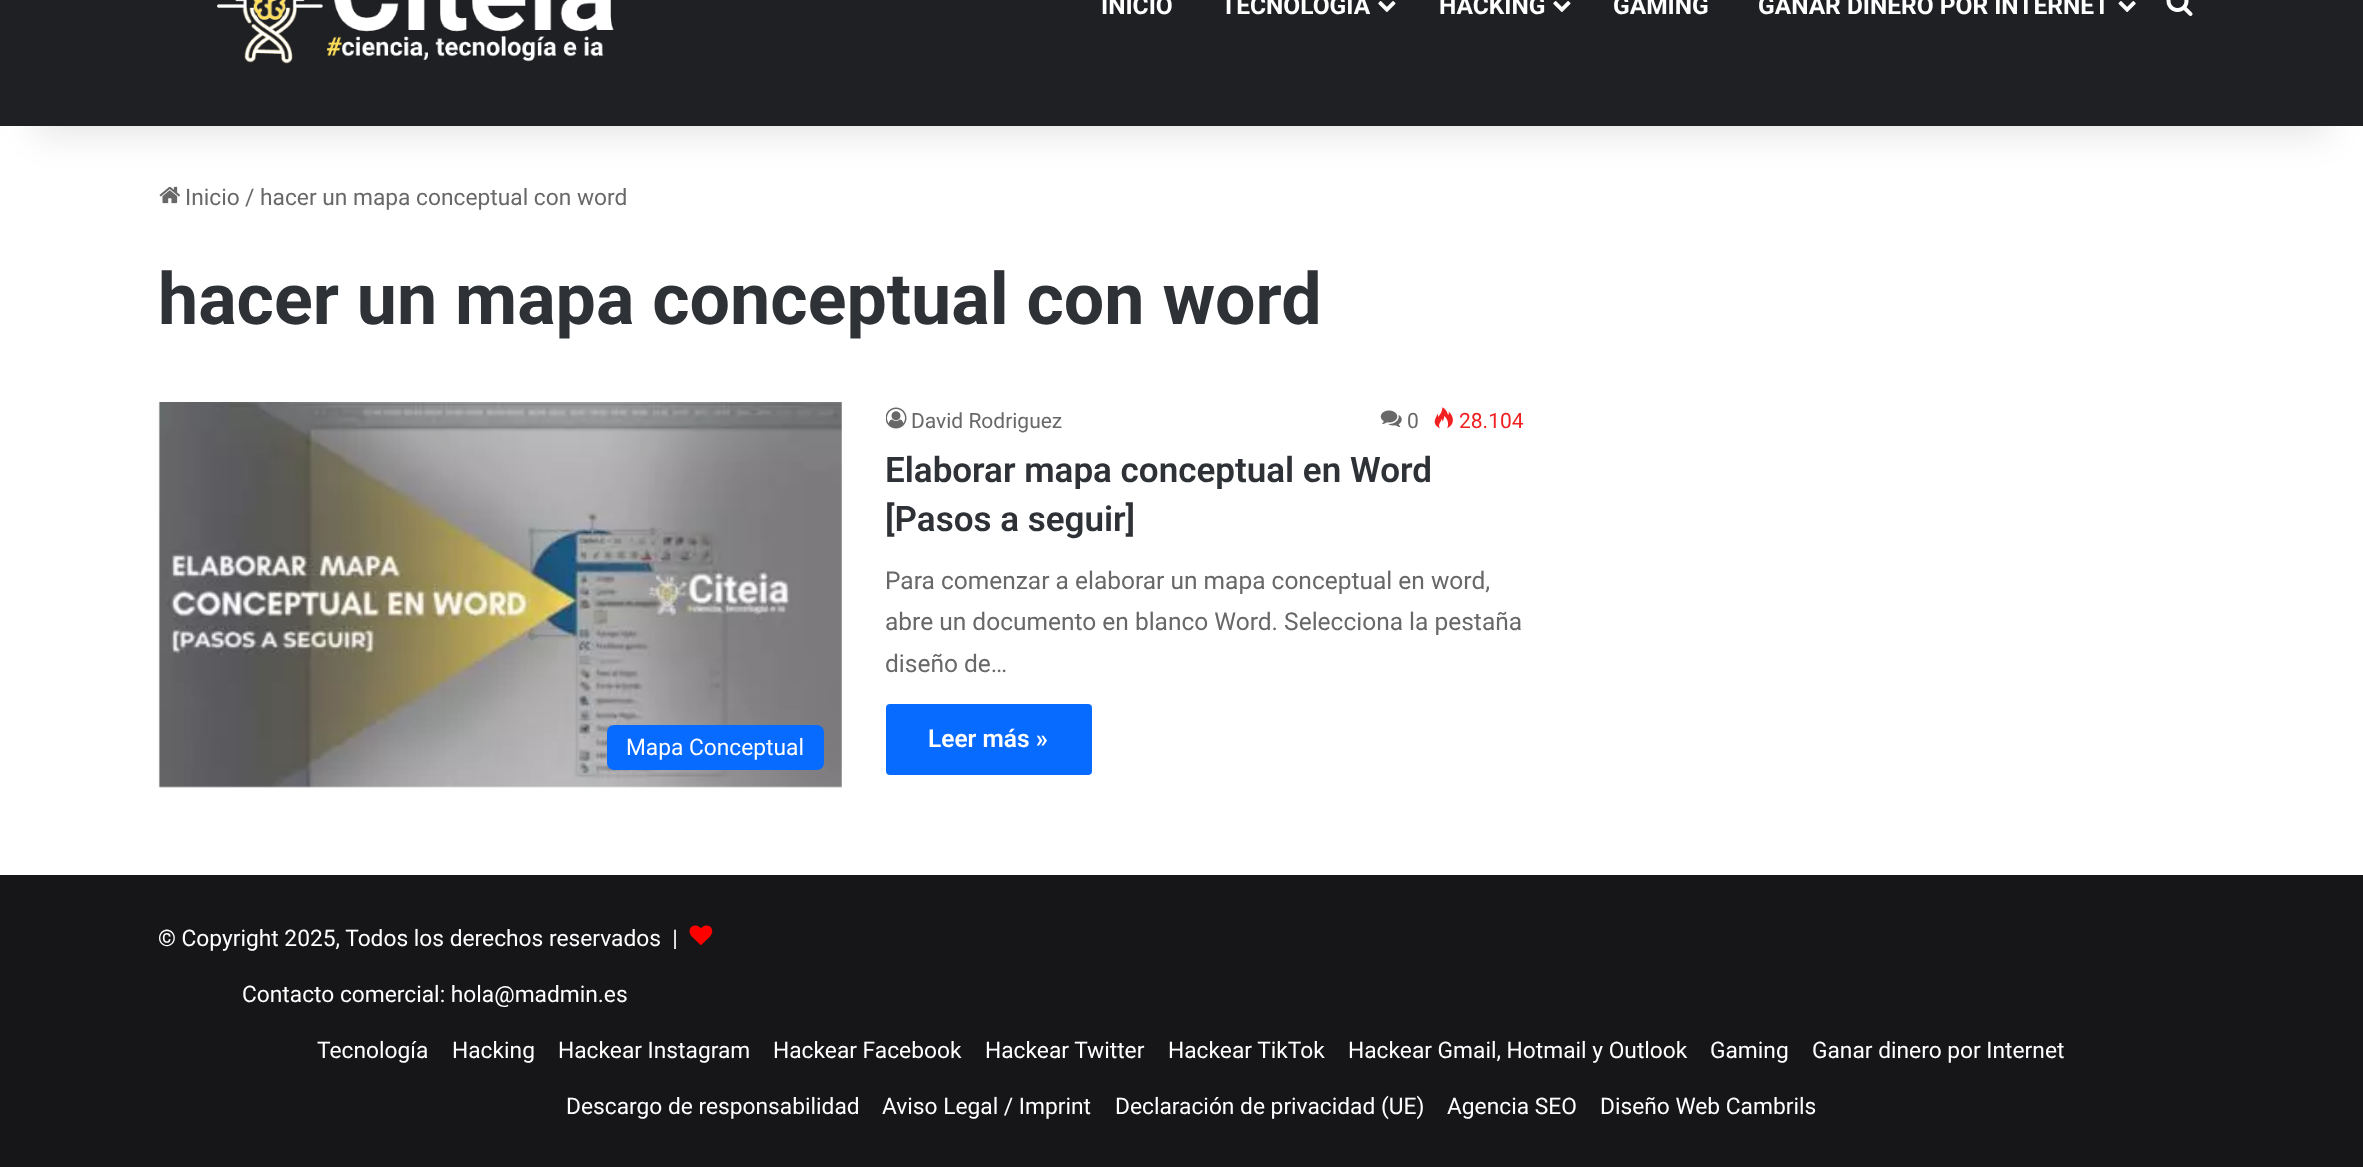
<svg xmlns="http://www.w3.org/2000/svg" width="2363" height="1167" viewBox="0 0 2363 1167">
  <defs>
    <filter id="blur1" x="-50%" y="-200%" width="200%" height="500%"><feGaussianBlur stdDeviation="17.5"/></filter>
  </defs>
  <rect width="100%" height="100%" fill="#ffffff"/>
  <image x="159" y="186" width="21" height="18" href="img5.png"/>
  <rect x="35" y="-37" width="2294" height="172" fill="#000000" fill-opacity="0.1" filter="url(#blur1)"/>
  <rect x="0" y="0" width="2363" height="126" fill="#1f2024"/>
  <image x="217" y="0" width="397" height="64" href="img1.png"/>
  <text x="1101" y="14" font-family="Roboto" font-size="24.5" font-weight="bold" fill="#ffffff">INICIO</text>
  <text x="1221" y="14" font-family="Roboto" font-size="24.5" font-weight="bold" fill="#ffffff">TECNOLOGÍA</text>
  <image x="1378" y="1" width="18" height="11" href="img2.png"/>
  <text x="1439" y="14" font-family="Roboto" font-size="24.5" font-weight="bold" fill="#ffffff">HACKING</text>
  <image x="1553" y="1" width="18" height="11" href="img2.png"/>
  <text x="1613" y="14" font-family="Roboto" font-size="24.5" font-weight="bold" fill="#ffffff">GAMING</text>
  <text x="1758" y="14" font-family="Roboto" font-size="24.5" font-weight="bold" fill="#ffffff">GANAR DINERO POR INTERNET</text>
  <image x="2118" y="1" width="18" height="11" href="img3.png"/>
  <image x="2166" y="0" width="27" height="16" href="img4.png"/>
  <text x="185" y="205" font-family="Roboto" font-size="22.75" fill="#686868">Inicio</text>
  <text x="245" y="205" font-family="Roboto" font-size="22.75" fill="#686868">/</text>
  <text x="260" y="205" font-family="Roboto" font-size="22.75" fill="#686868">hacer un mapa conceptual con word</text>
  <text x="158" y="324" font-family="Roboto" font-size="71.75" font-weight="bold" fill="#2e3136">hacer un mapa conceptual con word</text>
  <image x="158" y="402" width="684" height="386" href="img6.png"/>
  <rect x="607" y="725" width="217" height="45" rx="7" fill="#086bff"/>
  <text x="626" y="755" font-family="Roboto" font-size="22.75" fill="#ffffff">Mapa Conceptual</text>
  <image x="886" y="407" width="21" height="22" href="img7.png"/>
  <text x="911" y="428" font-family="Roboto" font-size="21" fill="#686868">David Rodriguez</text>
  <image x="1380" y="410" width="22" height="17" href="img8.png"/>
  <text x="1407" y="428" font-family="Roboto" font-size="21" fill="#686868">0</text>
  <image x="1434" y="407" width="19" height="22" href="img9.png"/>
  <text x="1459" y="428" font-family="Roboto" font-size="21" fill="#f12020">28.104</text>
  <text x="885" y="482" font-family="Roboto" font-size="35" font-weight="600" fill="#2e3136">Elaborar mapa conceptual en Word</text>
  <text x="885" y="531" font-family="Roboto" font-size="35" font-weight="600" fill="#2e3136">[Pasos a seguir]</text>
  <text x="885" y="589" font-family="Roboto" font-size="24.5" fill="#686868">Para comenzar a elaborar un mapa conceptual en word,</text>
  <text x="885" y="630" font-family="Roboto" font-size="24.5" fill="#686868">abre un documento en blanco Word. Selecciona la pestaña</text>
  <text x="885" y="672" font-family="Roboto" font-size="24.5" fill="#686868">diseño de…</text>
  <rect x="886" y="704" width="206" height="71" rx="4" fill="#086bff"/>
  <text x="928" y="747" font-family="Roboto" font-size="24.5" font-weight="600" fill="#ffffff">Leer más »</text>
  <rect x="0" y="875" width="2363" height="292" fill="#161619"/>
  <text x="158" y="946" font-family="Roboto" font-size="22.75" fill="#ffffff" xml:space="preserve">© Copyright 2025, Todos los derechos reservados  |</text>
  <image x="689" y="925" width="24" height="20" href="img10.png"/>
  <text x="242" y="1002" font-family="Roboto" font-size="22.75" fill="#ffffff">Contacto comercial: hola@madmin.es</text>
  <text x="317" y="1058" font-family="Roboto" font-size="22.75" fill="#ffffff">Tecnología</text>
  <text x="452" y="1058" font-family="Roboto" font-size="22.75" fill="#ffffff">Hacking</text>
  <text x="558" y="1058" font-family="Roboto" font-size="22.75" fill="#ffffff">Hackear Instagram</text>
  <text x="773" y="1058" font-family="Roboto" font-size="22.75" fill="#ffffff">Hackear Facebook</text>
  <text x="985" y="1058" font-family="Roboto" font-size="22.75" fill="#ffffff">Hackear Twitter</text>
  <text x="1168" y="1058" font-family="Roboto" font-size="22.75" fill="#ffffff">Hackear TikTok</text>
  <text x="1348" y="1058" font-family="Roboto" font-size="22.75" fill="#ffffff">Hackear Gmail, Hotmail y Outlook</text>
  <text x="1710" y="1058" font-family="Roboto" font-size="22.75" fill="#ffffff">Gaming</text>
  <text x="1812" y="1058" font-family="Roboto" font-size="22.75" fill="#ffffff">Ganar dinero por Internet</text>
  <text x="566" y="1114" font-family="Roboto" font-size="22.75" fill="#ffffff">Descargo de responsabilidad</text>
  <text x="882" y="1114" font-family="Roboto" font-size="22.75" fill="#ffffff">Aviso Legal / Imprint</text>
  <text x="1115" y="1114" font-family="Roboto" font-size="22.75" fill="#ffffff">Declaración de privacidad (UE)</text>
  <text x="1447" y="1114" font-family="Roboto" font-size="22.75" fill="#ffffff">Agencia SEO</text>
  <text x="1600" y="1114" font-family="Roboto" font-size="22.75" fill="#ffffff">Diseño Web Cambrils</text>
</svg>
